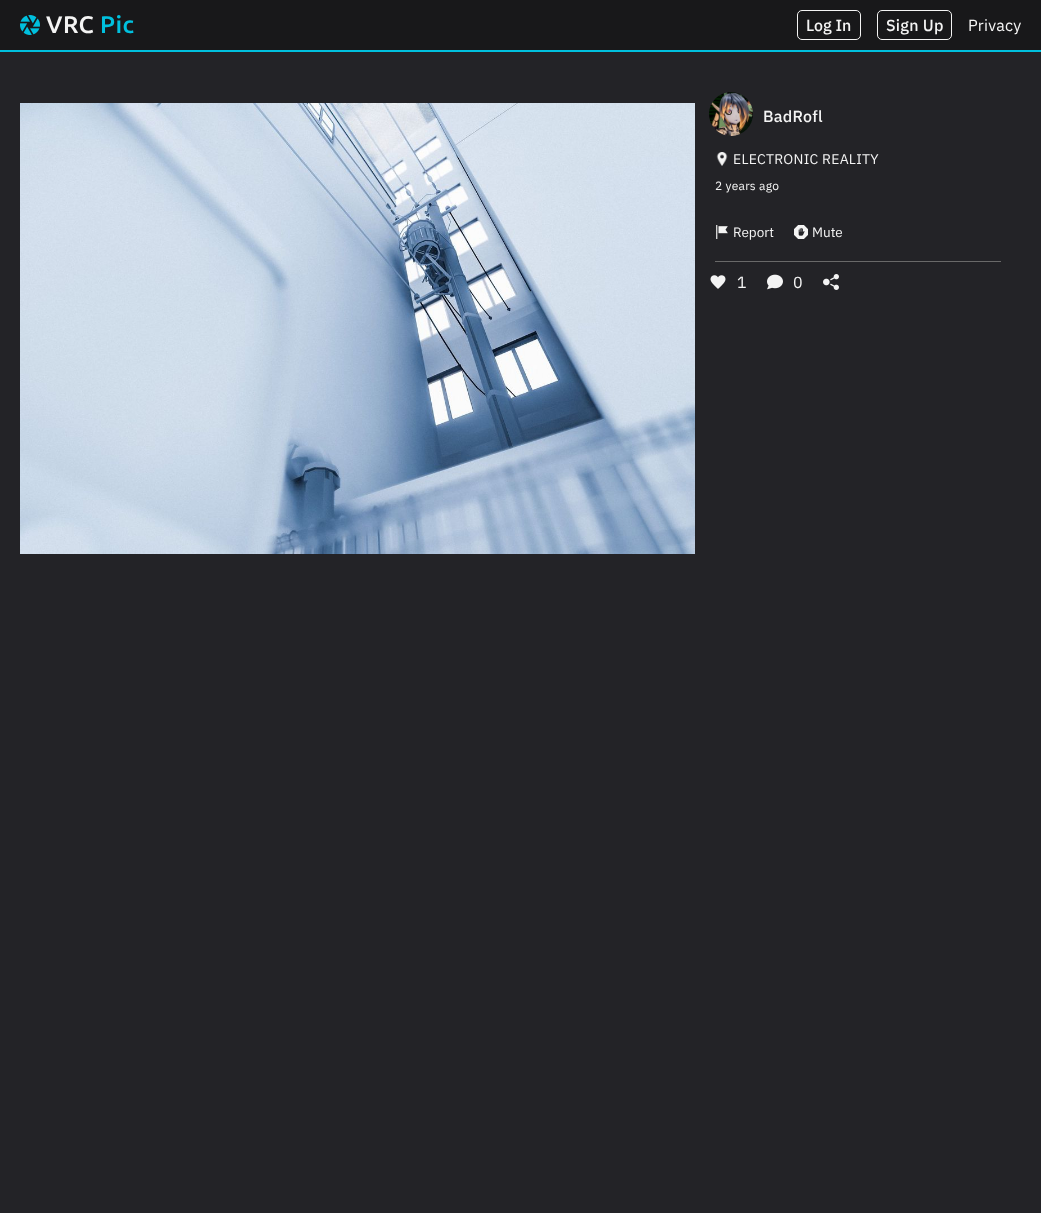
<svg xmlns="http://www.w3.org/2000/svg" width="1041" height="1213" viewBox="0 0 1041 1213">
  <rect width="100%" height="100%" fill="#232327"/>
  <rect x="0" y="0" width="1041" height="50" fill="#18181a"/>
  <rect x="0" y="50" width="1041" height="2" fill="#00c0de"/>
  <image x="20" y="15" width="20" height="20" href="img1.png"/>
  <text x="46" y="33" font-family="Ubuntu" font-size="24" font-weight="500" letter-spacing="0.5" fill="#f4f4f4">VRC</text>
  <text x="100" y="33" font-family="Ubuntu" font-size="24" font-weight="500" letter-spacing="0.5" fill="#00c0de">Pic</text>
  <rect x="797.5" y="10.5" width="63" height="29" rx="4.5" fill="none" stroke="#f4f4f4"/>
  <text x="806" y="31" font-family="IBM Plex Sans" font-size="16" font-weight="500" fill="#f4f4f4">Log In</text>
  <rect x="877.5" y="10.5" width="74" height="29" rx="4.5" fill="none" stroke="#f4f4f4"/>
  <text x="886" y="31" font-family="IBM Plex Sans" font-size="16" font-weight="500" letter-spacing="0.25" fill="#f4f4f4">Sign Up</text>
  <text x="968" y="31" font-family="IBM Plex Sans" font-size="16" letter-spacing="0.25" fill="#f4f4f4">Privacy</text>
  <image x="20" y="103" width="675" height="451" href="img2.png"/>
  <image x="709" y="92" width="44" height="44" href="img3.png"/>
  <text x="763" y="122" font-family="IBM Plex Sans" font-size="16" font-weight="500" letter-spacing="0.25" fill="#f4f4f4">BadRofl</text>
  <image x="716" y="152" width="12" height="14" href="img4.png"/>
  <text x="733" y="164" font-family="IBM Plex Sans" font-size="14" letter-spacing="0.25" fill="#f4f4f4">ELECTRONIC REALITY</text>
  <text x="715" y="190" font-family="IBM Plex Sans" font-size="12" letter-spacing="0.25" fill="#f4f4f4">2 years ago</text>
  <image x="716" y="225" width="12" height="14" href="img5.png"/>
  <text x="733" y="237" font-family="IBM Plex Sans" font-size="13.5" fill="#f4f4f4">Report</text>
  <image x="794" y="225" width="14" height="14" href="img6.png"/>
  <text x="812" y="237" font-family="IBM Plex Sans" font-size="13.5" fill="#f4f4f4">Mute</text>
  <rect x="715" y="261" width="286" height="1" fill="#696969"/>
  <image x="710" y="275" width="16" height="14" href="img7.png"/>
  <text x="737" y="288" font-family="IBM Plex Sans" font-size="16" letter-spacing="0.25" fill="#f4f4f4">1</text>
  <image x="767" y="274" width="16" height="16" href="img8.png"/>
  <text x="793" y="288" font-family="IBM Plex Sans" font-size="16" letter-spacing="0.25" fill="#f4f4f4">0</text>
  <image x="823" y="274" width="16" height="16" href="img9.png"/>
</svg>
